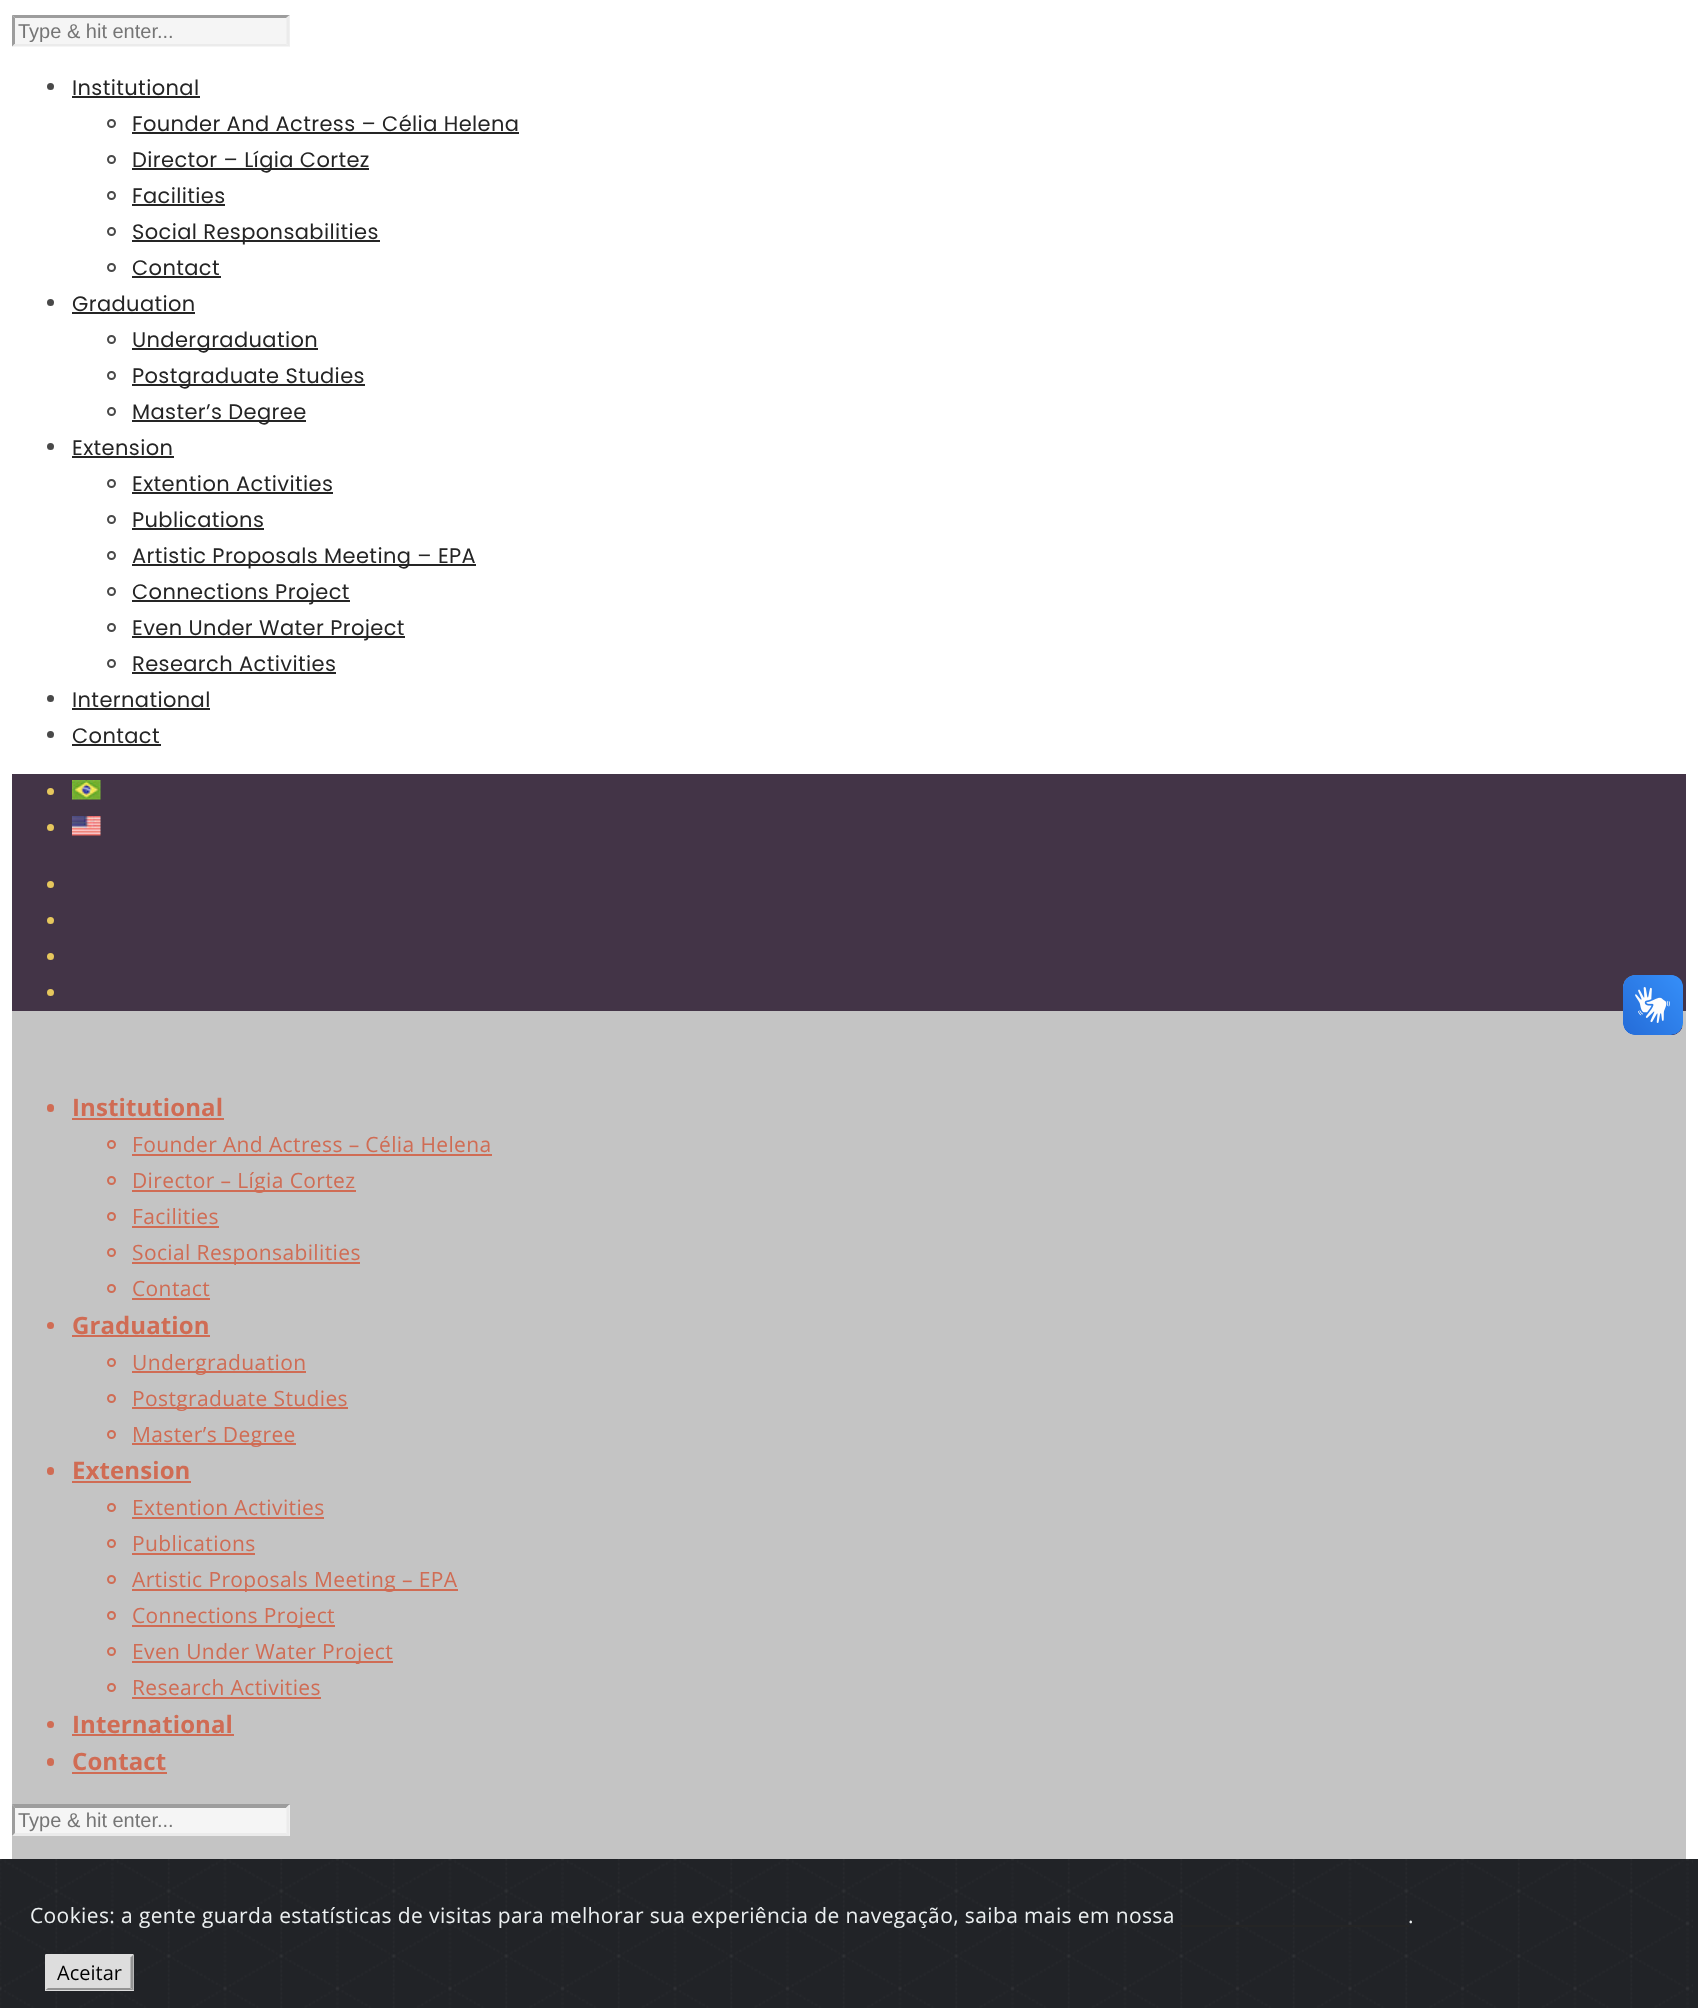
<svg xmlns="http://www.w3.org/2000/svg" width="1698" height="2008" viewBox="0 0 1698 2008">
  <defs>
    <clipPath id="clip1"><rect x="18" y="20" width="266" height="22"/></clipPath>
  </defs>
  <rect width="100%" height="100%" fill="#ffffff"/>
  <rect x="12" y="15" width="278" height="32" fill="#f5f5f5"/>
  <path d="M12 15H290L286 18H15Z" fill="#9d9d9d"/>
  <path d="M289.5 15V46.5L286.5 43.5V18Z" fill="#ebebeb"/>
  <path d="M290 46H12L15 44H286Z" fill="#ebebeb"/>
  <path d="M12 46.5V15L15 18V43.5Z" fill="#9d9d9d"/>
  <g clip-path="url(#clip1)">
    <text x="18" y="38" font-family="Liberation Sans" font-size="20" fill="#757575">Type &amp; hit enter...</text>
  </g>
  <circle cx="50.5" cy="86.5" r="3.5" fill="#494949"/>
  <text x="72" y="95" font-family="Poppins" font-size="21" letter-spacing="0.38" fill="#252525">Institutional</text>
  <rect x="72" y="96" width="128" height="2" fill="#252525"/>
  <circle cx="111.5" cy="123.5" r="3.5" fill="none" stroke="#494949" stroke-width="2"/>
  <text x="132" y="131" font-family="Poppins" font-size="21" letter-spacing="0.38" fill="#252525">Founder And Actress – Célia Helena</text>
  <rect x="132" y="132" width="387" height="2" fill="#252525"/>
  <circle cx="111.5" cy="159.5" r="3.5" fill="none" stroke="#494949" stroke-width="2"/>
  <rect x="132" y="168" width="237" height="2" fill="#252525"/>
  <text x="132" y="167" font-family="Poppins" font-size="21" letter-spacing="0.38" fill="#252525">Director – Lígia Cortez</text>
  <circle cx="111.5" cy="195.5" r="3.5" fill="none" stroke="#494949" stroke-width="2"/>
  <text x="132" y="203" font-family="Poppins" font-size="21" letter-spacing="0.38" fill="#252525">Facilities</text>
  <rect x="132" y="204" width="93" height="2" fill="#252525"/>
  <circle cx="111.5" cy="231.5" r="3.5" fill="none" stroke="#494949" stroke-width="2"/>
  <rect x="132" y="240" width="248" height="2" fill="#252525"/>
  <text x="132" y="239" font-family="Poppins" font-size="21" letter-spacing="0.38" fill="#252525">Social Responsabilities</text>
  <circle cx="111.5" cy="267.5" r="3.5" fill="none" stroke="#494949" stroke-width="2"/>
  <text x="132" y="275" font-family="Poppins" font-size="21" letter-spacing="0.38" fill="#252525">Contact</text>
  <rect x="132" y="276" width="89" height="2" fill="#252525"/>
  <circle cx="50.5" cy="302.5" r="3.5" fill="#494949"/>
  <text x="72" y="311" font-family="Poppins" font-size="21" letter-spacing="0.38" fill="#252525">Graduation</text>
  <rect x="72" y="312" width="123" height="2" fill="#252525"/>
  <circle cx="111.5" cy="339.5" r="3.5" fill="none" stroke="#494949" stroke-width="2"/>
  <rect x="132" y="348" width="186" height="2" fill="#252525"/>
  <text x="132" y="347" font-family="Poppins" font-size="21" letter-spacing="0.38" fill="#252525">Undergraduation</text>
  <circle cx="111.5" cy="375.5" r="3.5" fill="none" stroke="#494949" stroke-width="2"/>
  <rect x="132" y="384" width="233" height="2" fill="#252525"/>
  <text x="132" y="383" font-family="Poppins" font-size="21" letter-spacing="0.38" fill="#252525">Postgraduate Studies</text>
  <circle cx="111.5" cy="411.5" r="3.5" fill="none" stroke="#494949" stroke-width="2"/>
  <rect x="132" y="420" width="174" height="2" fill="#252525"/>
  <text x="132" y="419" font-family="Poppins" font-size="21" letter-spacing="0.38" fill="#252525">Master’s Degree</text>
  <circle cx="50.5" cy="446.5" r="3.5" fill="#494949"/>
  <text x="72" y="455" font-family="Poppins" font-size="21" letter-spacing="0.38" fill="#252525">Extension</text>
  <rect x="72" y="456" width="102" height="2" fill="#252525"/>
  <circle cx="111.5" cy="483.5" r="3.5" fill="none" stroke="#494949" stroke-width="2"/>
  <text x="132" y="491" font-family="Poppins" font-size="21" letter-spacing="0.38" fill="#252525">Extention Activities</text>
  <rect x="132" y="492" width="201" height="2" fill="#252525"/>
  <circle cx="111.5" cy="519.5" r="3.5" fill="none" stroke="#494949" stroke-width="2"/>
  <text x="132" y="527" font-family="Poppins" font-size="21" letter-spacing="0.38" fill="#252525">Publications</text>
  <rect x="132" y="528" width="132" height="2" fill="#252525"/>
  <circle cx="111.5" cy="555.5" r="3.5" fill="none" stroke="#494949" stroke-width="2"/>
  <rect x="132" y="564" width="344" height="2" fill="#252525"/>
  <text x="132" y="563" font-family="Poppins" font-size="21" letter-spacing="0.38" fill="#252525">Artistic Proposals Meeting – EPA</text>
  <circle cx="111.5" cy="591.5" r="3.5" fill="none" stroke="#494949" stroke-width="2"/>
  <rect x="132" y="600" width="218" height="2" fill="#252525"/>
  <text x="132" y="599" font-family="Poppins" font-size="21" letter-spacing="0.38" fill="#252525">Connections Project</text>
  <circle cx="111.5" cy="627.5" r="3.5" fill="none" stroke="#494949" stroke-width="2"/>
  <rect x="132" y="636" width="273" height="2" fill="#252525"/>
  <text x="132" y="635" font-family="Poppins" font-size="21" letter-spacing="0.38" fill="#252525">Even Under Water Project</text>
  <circle cx="111.5" cy="663.5" r="3.5" fill="none" stroke="#494949" stroke-width="2"/>
  <text x="132" y="671" font-family="Poppins" font-size="21" letter-spacing="0.38" fill="#252525">Research Activities</text>
  <rect x="132" y="672" width="204" height="2" fill="#252525"/>
  <circle cx="50.5" cy="698.5" r="3.5" fill="#494949"/>
  <text x="72" y="707" font-family="Poppins" font-size="21" letter-spacing="0.38" fill="#252525">International</text>
  <rect x="72" y="708" width="138" height="2" fill="#252525"/>
  <circle cx="50.5" cy="734.5" r="3.5" fill="#494949"/>
  <text x="72" y="743" font-family="Poppins" font-size="21" letter-spacing="0.38" fill="#252525">Contact</text>
  <rect x="72" y="744" width="89" height="2" fill="#252525"/>
  <rect x="12" y="1011" width="1674" height="848" fill="#c4c4c4"/>
  <rect x="12" y="774" width="1674" height="237" fill="#433447"/>
  <image x="1623" y="975" width="60" height="60" href="img1.png"/>
  <image x="1623" y="975" width="60" height="60" href="img2.png"/>
  <circle cx="50.5" cy="791.5" r="3.5" fill="#e6c75d"/>
  <image x="72" y="780" width="29" height="20" href="img3.png"/>
  <circle cx="50.5" cy="827.5" r="3.5" fill="#e6c75d"/>
  <image x="72" y="816" width="29" height="20" href="img4.png"/>
  <circle cx="50.5" cy="884.5" r="3.5" fill="#e6c75d"/>
  <circle cx="50.5" cy="920.5" r="3.5" fill="#e6c75d"/>
  <circle cx="50.5" cy="956.5" r="3.5" fill="#e6c75d"/>
  <circle cx="50.5" cy="992.5" r="3.5" fill="#e6c75d"/>
  <rect x="47" y="1104" width="7" height="8" rx="3.5" fill="#d06c54"/>
  <text x="72" y="1116" font-family="Open Sans" font-size="24" font-weight="bold" letter-spacing="0.1" fill="#d06c54">Institutional</text>
  <rect x="72" y="1118" width="152" height="2" fill="#d06c54"/>
  <circle cx="111.5" cy="1144.5" r="3.5" fill="none" stroke="#d06c54" stroke-width="2"/>
  <text x="132" y="1152" font-family="Open Sans" font-size="21" letter-spacing="0.38" fill="#d06c54">Founder And Actress – Célia Helena</text>
  <rect x="132" y="1154" width="360" height="2" fill="#d06c54"/>
  <circle cx="111.5" cy="1180.5" r="3.5" fill="none" stroke="#d06c54" stroke-width="2"/>
  <rect x="132" y="1190" width="224" height="2" fill="#d06c54"/>
  <text x="132" y="1188" font-family="Open Sans" font-size="21" letter-spacing="0.38" fill="#d06c54">Director – Lígia Cortez</text>
  <circle cx="111.5" cy="1216.5" r="3.5" fill="none" stroke="#d06c54" stroke-width="2"/>
  <text x="132" y="1224" font-family="Open Sans" font-size="21" letter-spacing="0.38" fill="#d06c54">Facilities</text>
  <rect x="132" y="1226" width="87" height="2" fill="#d06c54"/>
  <circle cx="111.5" cy="1252.5" r="3.5" fill="none" stroke="#d06c54" stroke-width="2"/>
  <rect x="132" y="1262" width="228" height="2" fill="#d06c54"/>
  <text x="132" y="1260" font-family="Open Sans" font-size="21" letter-spacing="0.38" fill="#d06c54">Social Responsabilities</text>
  <circle cx="111.5" cy="1288.5" r="3.5" fill="none" stroke="#d06c54" stroke-width="2"/>
  <text x="132" y="1296" font-family="Open Sans" font-size="21" letter-spacing="0.38" fill="#d06c54">Contact</text>
  <rect x="132" y="1298" width="78" height="2" fill="#d06c54"/>
  <circle cx="50.5" cy="1325.5" r="3.5" fill="#d06c54"/>
  <text x="72" y="1334" font-family="Open Sans" font-size="24" font-weight="bold" letter-spacing="0.1" fill="#d06c54">Graduation</text>
  <rect x="72" y="1335" width="138" height="2" fill="#d06c54"/>
  <circle cx="111.5" cy="1362.5" r="3.5" fill="none" stroke="#d06c54" stroke-width="2"/>
  <rect x="132" y="1371" width="174" height="2" fill="#d06c54"/>
  <text x="132" y="1370" font-family="Open Sans" font-size="21" letter-spacing="0.38" fill="#d06c54">Undergraduation</text>
  <circle cx="111.5" cy="1398.5" r="3.5" fill="none" stroke="#d06c54" stroke-width="2"/>
  <rect x="132" y="1407" width="216" height="2" fill="#d06c54"/>
  <text x="132" y="1406" font-family="Open Sans" font-size="21" letter-spacing="0.38" fill="#d06c54">Postgraduate Studies</text>
  <circle cx="111.5" cy="1434.5" r="3.5" fill="none" stroke="#d06c54" stroke-width="2"/>
  <rect x="132" y="1443" width="164" height="2" fill="#d06c54"/>
  <text x="132" y="1442" font-family="Open Sans" font-size="21" letter-spacing="0.38" fill="#d06c54">Master’s Degree</text>
  <rect x="47" y="1467" width="7" height="8" rx="3.5" fill="#d06c54"/>
  <text x="72" y="1479" font-family="Open Sans" font-size="24" font-weight="bold" letter-spacing="0.1" fill="#d06c54">Extension</text>
  <rect x="72" y="1481" width="119" height="2" fill="#d06c54"/>
  <circle cx="111.5" cy="1507.5" r="3.5" fill="none" stroke="#d06c54" stroke-width="2"/>
  <text x="132" y="1515" font-family="Open Sans" font-size="21" letter-spacing="0.38" fill="#d06c54">Extention Activities</text>
  <rect x="132" y="1517" width="192" height="2" fill="#d06c54"/>
  <circle cx="111.5" cy="1543.5" r="3.5" fill="none" stroke="#d06c54" stroke-width="2"/>
  <text x="132" y="1551" font-family="Open Sans" font-size="21" letter-spacing="0.38" fill="#d06c54">Publications</text>
  <rect x="132" y="1553" width="123" height="2" fill="#d06c54"/>
  <circle cx="111.5" cy="1579.5" r="3.5" fill="none" stroke="#d06c54" stroke-width="2"/>
  <rect x="132" y="1589" width="326" height="2" fill="#d06c54"/>
  <text x="132" y="1587" font-family="Open Sans" font-size="21" letter-spacing="0.38" fill="#d06c54">Artistic Proposals Meeting – EPA</text>
  <circle cx="111.5" cy="1615.5" r="3.5" fill="none" stroke="#d06c54" stroke-width="2"/>
  <rect x="132" y="1625" width="203" height="2" fill="#d06c54"/>
  <text x="132" y="1623" font-family="Open Sans" font-size="21" letter-spacing="0.38" fill="#d06c54">Connections Project</text>
  <circle cx="111.5" cy="1651.5" r="3.5" fill="none" stroke="#d06c54" stroke-width="2"/>
  <rect x="132" y="1661" width="261" height="2" fill="#d06c54"/>
  <text x="132" y="1659" font-family="Open Sans" font-size="21" letter-spacing="0.38" fill="#d06c54">Even Under Water Project</text>
  <circle cx="111.5" cy="1687.5" r="3.5" fill="none" stroke="#d06c54" stroke-width="2"/>
  <text x="132" y="1695" font-family="Open Sans" font-size="21" letter-spacing="0.38" fill="#d06c54">Research Activities</text>
  <rect x="132" y="1697" width="189" height="2" fill="#d06c54"/>
  <circle cx="50.5" cy="1724.5" r="3.5" fill="#d06c54"/>
  <text x="72" y="1733" font-family="Open Sans" font-size="24" font-weight="bold" letter-spacing="0.1" fill="#d06c54">International</text>
  <rect x="72" y="1734" width="162" height="2" fill="#d06c54"/>
  <rect x="47" y="1758" width="7" height="8" rx="3.5" fill="#d06c54"/>
  <text x="72" y="1770" font-family="Open Sans" font-size="24" font-weight="bold" letter-spacing="0.1" fill="#d06c54">Contact</text>
  <rect x="72" y="1772" width="95" height="2" fill="#d06c54"/>
  <rect x="12" y="1805" width="278" height="31" fill="#f5f5f5"/>
  <path d="M12 1804H290L286 1808H15Z" fill="#9d9d9d"/>
  <path d="M289.5 1804.5V1836L286.5 1833V1807.5Z" fill="#ebebeb"/>
  <path d="M290 1836H12L15 1833H286Z" fill="#ebebeb"/>
  <path d="M12 1836V1804.5L15 1807.5V1833Z" fill="#9d9d9d"/>
  <text x="18" y="1827" font-family="Liberation Sans" font-size="20" fill="#757575">Type &amp; hit enter...</text>
  <rect x="1693" y="1859" width="5" height="149" fill="#212327"/>
  <image x="0" y="1859" width="1693" height="149" href="img5.png"/>
  <text x="30" y="1923" font-family="Open Sans" font-size="21" letter-spacing="0.38" fill="#ecf0f1">Cookies: a gente guarda estatísticas de visitas para melhorar sua experiência de navegação, saiba mais em nossa</text>
  <text x="1408" y="1923" font-family="Open Sans" font-size="21" letter-spacing="0.38" fill="#ecf0f1">.</text>
  <rect x="1181" y="1925" width="228" height="2" fill="#252525"/>
  <rect x="45" y="1955" width="89" height="36" fill="#dddddd"/>
  <path d="M45 1954H134L130 1958H48Z" fill="#dddddd"/>
  <path d="M133.5 1954.5V1990.5L130.5 1987.5V1957.5Z" fill="#939393"/>
  <path d="M134 1990H45L48 1988H130Z" fill="#939393"/>
  <path d="M45 1990.5V1954.5L48 1957.5V1987.5Z" fill="#dddddd"/>
  <text x="57" y="1980" font-family="Open Sans" font-size="20" fill="#000000">Aceitar</text>
</svg>
